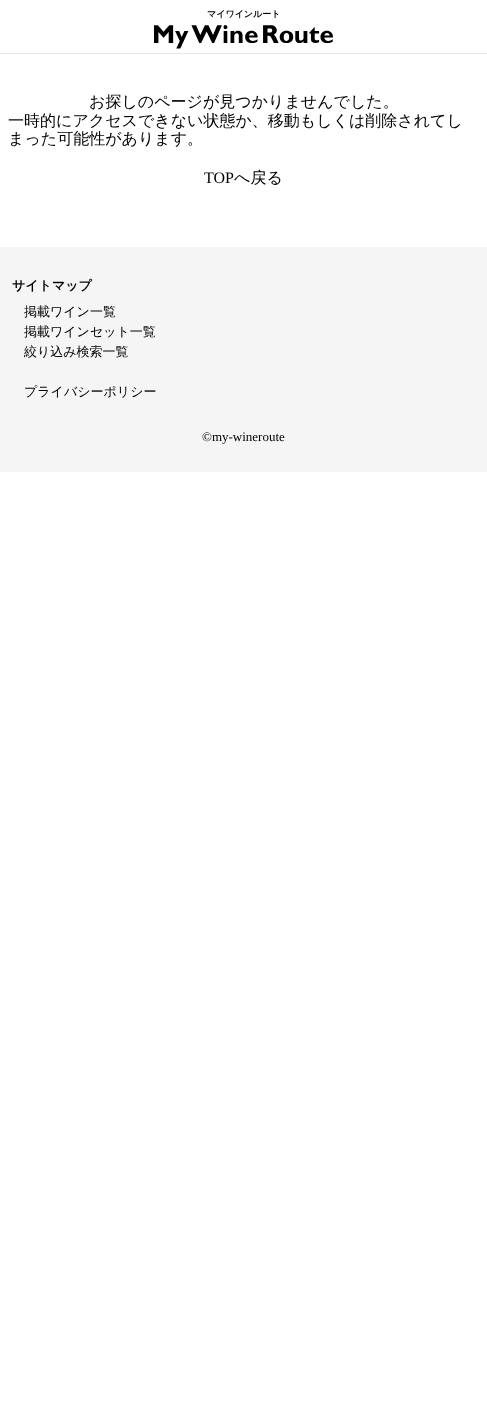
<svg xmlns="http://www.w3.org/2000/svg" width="487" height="1424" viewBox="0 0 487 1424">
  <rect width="100%" height="100%" fill="#ffffff"/>
  <rect x="0" y="53" width="487" height="1" fill="#e6e6e6"/>
  <text x="207" y="17" font-family="WenQuanYi Zen Hei" font-size="9" font-weight="bold" fill="#000000">マイワインルート</text>
  <image x="154" y="25" width="179" height="24" href="img1.png"/>
  <text x="89" y="107" font-family="WenQuanYi Zen Hei" font-size="16" font-weight="500" fill="#000000">お探しのページが見つかりませんでした。</text>
  <text x="8" y="126" font-family="WenQuanYi Zen Hei" font-size="16" font-weight="500" fill="#000000">一時的にアクセスできない状態か、移動もしくは削除されてし</text>
  <text x="8" y="144" font-family="WenQuanYi Zen Hei" font-size="16" font-weight="500" fill="#000000">まった可能性があります。</text>
  <text x="204" y="183" font-family="Liberation Serif" font-size="16" fill="#000000">TOP</text>
  <text x="234" y="183" font-family="WenQuanYi Zen Hei" font-size="16" font-weight="500" fill="#000000">へ戻る</text>
  <rect x="0" y="247" width="487" height="225" fill="#f5f5f5"/>
  <text x="12" y="290" font-family="WenQuanYi Zen Hei" font-size="13" font-weight="bold" fill="#000000">サイトマップ</text>
  <text x="24" y="316" font-family="WenQuanYi Zen Hei" font-size="13" font-weight="500" fill="#000000">掲載ワイン一覧</text>
  <text x="24" y="336" font-family="WenQuanYi Zen Hei" font-size="13" font-weight="500" fill="#000000">掲載ワインセット一覧</text>
  <text x="24" y="356" font-family="WenQuanYi Zen Hei" font-size="13" font-weight="500" fill="#000000">絞り込み検索一覧</text>
  <text x="24" y="396" font-family="WenQuanYi Zen Hei" font-size="13" font-weight="500" fill="#000000">プライバシーポリシー</text>
  <text x="202" y="441" font-family="Liberation Serif" font-size="13" fill="#000000">©my-wineroute</text>
</svg>
